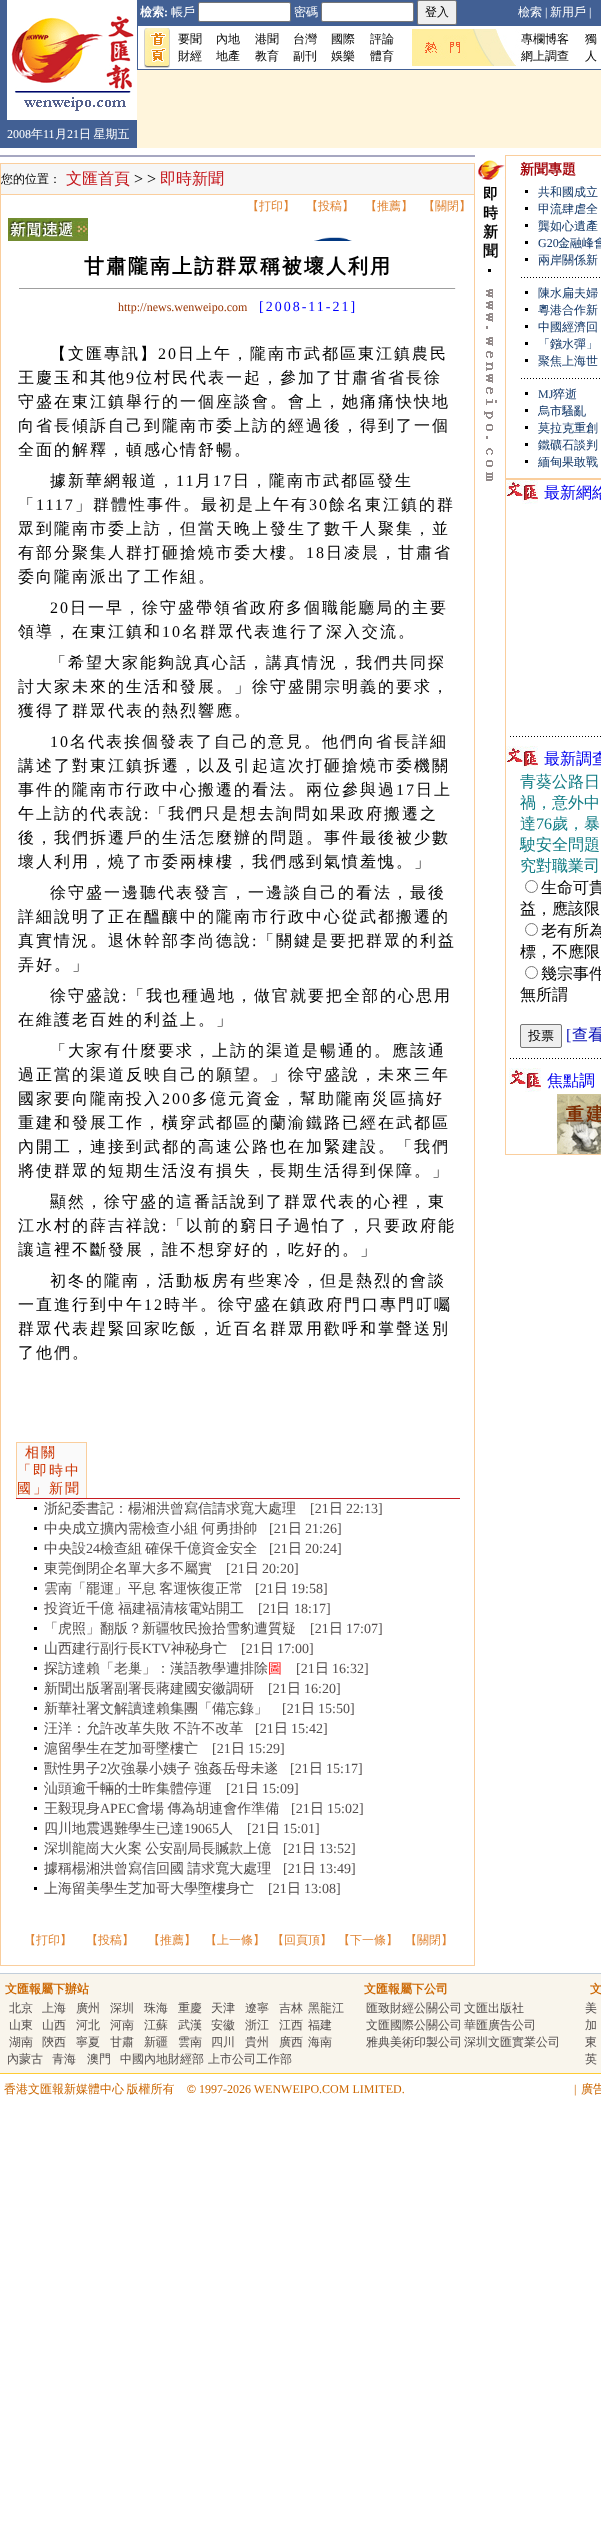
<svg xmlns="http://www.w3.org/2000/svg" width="601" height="2537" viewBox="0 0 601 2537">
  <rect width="100%" height="100%" fill="#ffffff"/>
  <rect x="0" y="0" width="7" height="120" fill="#426094"/>
  <image x="7" y="0" width="130" height="120" href="img1.png"/>
  <rect x="137" y="70" width="464" height="78" fill="#fff5dc"/>
  <rect x="137" y="0" width="464" height="25" fill="#426094"/>
  <text x="140" y="16" font-family="WenQuanYi Zen Hei" font-size="12" font-weight="bold" fill="#ffffff">檢索</text>
  <text x="164" y="16" font-family="Liberation Serif" font-size="12" font-weight="bold" fill="#ffffff">:</text>
  <text x="171" y="16" font-family="WenQuanYi Zen Hei" font-size="12" font-weight="500" fill="#ffffff">帳戶</text>
  <rect x="198.5" y="2.5" width="92" height="19" rx="1.5" fill="#ffffff" stroke="#767676"/>
  <text x="294" y="16" font-family="WenQuanYi Zen Hei" font-size="12" font-weight="500" fill="#ffffff">密碼</text>
  <rect x="321.5" y="2.5" width="92" height="19" rx="1.5" fill="#ffffff" stroke="#767676"/>
  <rect x="417.5" y="0.5" width="39" height="24" rx="1.5" fill="#efefef" stroke="#767676"/>
  <text x="425" y="16" font-family="WenQuanYi Zen Hei" font-size="12" font-weight="500" fill="#000000">登入</text>
  <text x="518" y="16" font-family="WenQuanYi Zen Hei" font-size="12" font-weight="500" fill="#ffffff">檢索</text>
  <text x="545" y="16" font-family="Liberation Serif" font-size="12" fill="#ffffff">|</text>
  <text x="550" y="16" font-family="WenQuanYi Zen Hei" font-size="12" font-weight="500" fill="#ffffff">新用戶</text>
  <text x="589" y="16" font-family="Liberation Serif" font-size="12" fill="#ffffff">|</text>
  <rect x="137.5" y="25.5" width="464" height="44" fill="none" stroke="#426094"/>
  <image x="144" y="28" width="26" height="40" href="img2.png"/>
  <text x="178" y="43" font-family="WenQuanYi Zen Hei" font-size="12" font-weight="500" fill="#000000">要聞</text>
  <text x="216" y="43" font-family="WenQuanYi Zen Hei" font-size="12" font-weight="500" fill="#000000">內地</text>
  <text x="255" y="43" font-family="WenQuanYi Zen Hei" font-size="12" font-weight="500" fill="#000000">港聞</text>
  <text x="293" y="43" font-family="WenQuanYi Zen Hei" font-size="12" font-weight="500" fill="#000000">台灣</text>
  <text x="331" y="43" font-family="WenQuanYi Zen Hei" font-size="12" font-weight="500" fill="#000000">國際</text>
  <text x="370" y="43" font-family="WenQuanYi Zen Hei" font-size="12" font-weight="500" fill="#000000">評論</text>
  <text x="178" y="60" font-family="WenQuanYi Zen Hei" font-size="12" font-weight="500" fill="#000000">財經</text>
  <text x="216" y="60" font-family="WenQuanYi Zen Hei" font-size="12" font-weight="500" fill="#000000">地產</text>
  <text x="255" y="60" font-family="WenQuanYi Zen Hei" font-size="12" font-weight="500" fill="#000000">教育</text>
  <text x="293" y="60" font-family="WenQuanYi Zen Hei" font-size="12" font-weight="500" fill="#000000">副刊</text>
  <text x="331" y="60" font-family="WenQuanYi Zen Hei" font-size="12" font-weight="500" fill="#000000">娛樂</text>
  <text x="370" y="60" font-family="WenQuanYi Zen Hei" font-size="12" font-weight="500" fill="#000000">體育</text>
  <image x="412" y="29" width="109" height="37" href="img3.png"/>
  <text x="521" y="43" font-family="WenQuanYi Zen Hei" font-size="12" font-weight="500" fill="#000000">專欄博客</text>
  <text x="585" y="43" font-family="WenQuanYi Zen Hei" font-size="12" font-weight="500" fill="#000000">獨</text>
  <text x="521" y="60" font-family="WenQuanYi Zen Hei" font-size="12" font-weight="500" fill="#000000">網上調查</text>
  <text x="585" y="60" font-family="WenQuanYi Zen Hei" font-size="12" font-weight="500" fill="#000000">人</text>
  <rect x="0" y="120" width="137" height="28" fill="#426094"/>
  <text x="7" y="138" font-family="Liberation Serif" font-size="12" fill="#ffffff">2008</text>
  <text x="31" y="138" font-family="WenQuanYi Zen Hei" font-size="12" font-weight="500" fill="#ffffff">年</text>
  <text x="43" y="138" font-family="Liberation Serif" font-size="12" fill="#ffffff">11</text>
  <text x="55" y="138" font-family="WenQuanYi Zen Hei" font-size="12" font-weight="500" fill="#ffffff">月</text>
  <text x="67" y="138" font-family="Liberation Serif" font-size="12" fill="#ffffff">21</text>
  <text x="79" y="138" word-spacing="-1" font-family="WenQuanYi Zen Hei" font-size="12" font-weight="500" fill="#ffffff">日 星期五</text>
  <rect x="0" y="155" width="475" height="2" fill="#a6a7c1"/>
  <rect x="0" y="163" width="475" height="1" fill="#face9d"/>
  <rect x="474" y="163" width="1" height="31" fill="#face9d"/>
  <rect x="0" y="163" width="1" height="31" fill="#face9d"/>
  <rect x="1" y="164" width="473" height="30" fill="#f6f6f6"/>
  <text x="1" y="183" font-family="WenQuanYi Zen Hei" font-size="12" font-weight="500" fill="#000000">您的位置：</text>
  <text x="66" y="184" font-family="WenQuanYi Zen Hei" font-size="16" font-weight="500" fill="#c5171c">文匯首頁</text>
  <text x="134" y="184" font-family="Liberation Serif" font-size="16" fill="#000000">&gt; &gt;</text>
  <text x="160" y="184" font-family="WenQuanYi Zen Hei" font-size="16" font-weight="500" fill="#c5171c">即時新聞</text>
  <rect x="0" y="194" width="475" height="1" fill="#face9d"/>
  <rect x="474" y="194" width="1" height="1772" fill="#face9d"/>
  <rect x="0" y="194" width="1" height="1772" fill="#face9d"/>
  <text x="247" y="210" font-family="WenQuanYi Zen Hei" font-size="12" font-weight="500" fill="#e08535">【打印】</text>
  <text x="306" y="210" font-family="WenQuanYi Zen Hei" font-size="12" font-weight="500" fill="#e08535">【投稿】</text>
  <text x="365" y="210" font-family="WenQuanYi Zen Hei" font-size="12" font-weight="500" fill="#e08535">【推薦】</text>
  <text x="423" y="210" font-family="WenQuanYi Zen Hei" font-size="12" font-weight="500" fill="#e08535">【關閉】</text>
  <image x="8" y="218" width="80" height="23" href="img4.png"/>
  <image x="314" y="237" width="38" height="4" href="img5.png"/>
  <text x="84" y="273" font-family="WenQuanYi Zen Hei" font-size="20" font-weight="bold" letter-spacing="2" fill="#000000">甘肅隴南上訪群眾稱被壞人利用</text>
  <rect x="19" y="288" width="437" height="1" fill="#9f9f9f"/>
  <rect x="455" y="288" width="1" height="1" fill="#eeeeee"/>
  <text x="118" y="311" font-family="Liberation Serif" font-size="12" fill="#993300">http://news.wenweipo.com</text>
  <text x="259" y="311" font-family="Liberation Serif" font-size="14" letter-spacing="2" fill="#0000ff">[2008-11-21]</text>
  <text x="50" y="359" font-family="WenQuanYi Zen Hei" font-size="16" font-weight="500" letter-spacing="2" fill="#000000">【文匯專訊】</text>
  <text x="158" y="359" font-family="Liberation Serif" font-size="16" letter-spacing="2" fill="#000000">20</text>
  <text x="178" y="359" font-family="WenQuanYi Zen Hei" font-size="16" font-weight="500" letter-spacing="2" fill="#000000">日上午，隴南市武都區東江鎮農民</text>
  <text x="18" y="383" font-family="WenQuanYi Zen Hei" font-size="16" font-weight="500" letter-spacing="2" fill="#000000">王慶玉和其他</text>
  <text x="126" y="383" font-family="Liberation Serif" font-size="16" letter-spacing="2" fill="#000000">9</text>
  <text x="136" y="383" font-family="WenQuanYi Zen Hei" font-size="16" font-weight="500" letter-spacing="2" fill="#000000">位村民代表一起，參加了甘肅省省長徐</text>
  <text x="18" y="407" font-family="WenQuanYi Zen Hei" font-size="16" font-weight="500" letter-spacing="2" fill="#000000">守盛在東江鎮舉行的一個座談會。會上，她痛痛快快地</text>
  <text x="18" y="431" font-family="WenQuanYi Zen Hei" font-size="16" font-weight="500" letter-spacing="2" fill="#000000">向省長傾訴自己到隴南市委上訪的經過後，得到了一個</text>
  <text x="18" y="455" font-family="WenQuanYi Zen Hei" font-size="16" font-weight="500" letter-spacing="2" fill="#000000">全面的解釋，頓感心情舒暢。</text>
  <text x="50" y="486" font-family="WenQuanYi Zen Hei" font-size="16" font-weight="500" letter-spacing="2" fill="#000000">據新華網報道，</text>
  <text x="176" y="486" font-family="Liberation Serif" font-size="16" letter-spacing="2" fill="#000000">11</text>
  <text x="195" y="486" font-family="WenQuanYi Zen Hei" font-size="16" font-weight="500" letter-spacing="2" fill="#000000">月</text>
  <text x="213" y="486" font-family="Liberation Serif" font-size="16" letter-spacing="2" fill="#000000">17</text>
  <text x="233" y="486" font-family="WenQuanYi Zen Hei" font-size="16" font-weight="500" letter-spacing="2" fill="#000000">日，隴南市武都區發生</text>
  <text x="18" y="510" font-family="WenQuanYi Zen Hei" font-size="16" font-weight="500" letter-spacing="2" fill="#000000">「</text>
  <text x="36" y="510" font-family="Liberation Serif" font-size="16" letter-spacing="2" fill="#000000">1117</text>
  <text x="75" y="510" font-family="WenQuanYi Zen Hei" font-size="16" font-weight="500" letter-spacing="2" fill="#000000">」群體性事件。最初是上午有</text>
  <text x="309" y="510" font-family="Liberation Serif" font-size="16" letter-spacing="2" fill="#000000">30</text>
  <text x="329" y="510" font-family="WenQuanYi Zen Hei" font-size="16" font-weight="500" letter-spacing="2" fill="#000000">餘名東江鎮的群</text>
  <text x="18" y="534" font-family="WenQuanYi Zen Hei" font-size="16" font-weight="500" letter-spacing="2" fill="#000000">眾到隴南市委上訪，但當天晚上發生了數千人聚集，並</text>
  <text x="18" y="558" font-family="WenQuanYi Zen Hei" font-size="16" font-weight="500" letter-spacing="2" fill="#000000">有部分聚集人群打砸搶燒市委大樓。</text>
  <text x="306" y="558" font-family="Liberation Serif" font-size="16" letter-spacing="2" fill="#000000">18</text>
  <text x="326" y="558" font-family="WenQuanYi Zen Hei" font-size="16" font-weight="500" letter-spacing="2" fill="#000000">日凌晨，甘肅省</text>
  <text x="18" y="582" font-family="WenQuanYi Zen Hei" font-size="16" font-weight="500" letter-spacing="2" fill="#000000">委向隴南派出了工作組。</text>
  <text x="50" y="613" font-family="Liberation Serif" font-size="16" letter-spacing="2" fill="#000000">20</text>
  <text x="70" y="613" font-family="WenQuanYi Zen Hei" font-size="16" font-weight="500" letter-spacing="2" fill="#000000">日一早，徐守盛帶領省政府多個職能廳局的主要</text>
  <text x="18" y="637" font-family="WenQuanYi Zen Hei" font-size="16" font-weight="500" letter-spacing="2" fill="#000000">領導，在東江鎮和</text>
  <text x="162" y="637" font-family="Liberation Serif" font-size="16" letter-spacing="2" fill="#000000">10</text>
  <text x="182" y="637" font-family="WenQuanYi Zen Hei" font-size="16" font-weight="500" letter-spacing="2" fill="#000000">名群眾代表進行了深入交流。</text>
  <text x="50" y="668" font-family="WenQuanYi Zen Hei" font-size="16" font-weight="500" letter-spacing="2" fill="#000000">「希望大家能夠說真心話，講真情況，我們共同探</text>
  <text x="18" y="692" font-family="WenQuanYi Zen Hei" font-size="16" font-weight="500" letter-spacing="2" fill="#000000">討大家未來的生活和發展。」徐守盛開宗明義的要求，</text>
  <text x="18" y="716" font-family="WenQuanYi Zen Hei" font-size="16" font-weight="500" letter-spacing="2" fill="#000000">獲得了群眾代表的熱烈響應。</text>
  <text x="50" y="747" font-family="Liberation Serif" font-size="16" letter-spacing="2" fill="#000000">10</text>
  <text x="70" y="747" font-family="WenQuanYi Zen Hei" font-size="16" font-weight="500" letter-spacing="2" fill="#000000">名代表挨個發表了自己的意見。他們向省長詳細</text>
  <text x="18" y="771" font-family="WenQuanYi Zen Hei" font-size="16" font-weight="500" letter-spacing="2" fill="#000000">講述了對東江鎮拆遷，以及引起這次打砸搶燒市委機關</text>
  <text x="18" y="795" font-family="WenQuanYi Zen Hei" font-size="16" font-weight="500" letter-spacing="2" fill="#000000">事件的隴南市行政中心搬遷的看法。兩位參與過</text>
  <text x="396" y="795" font-family="Liberation Serif" font-size="16" letter-spacing="2" fill="#000000">17</text>
  <text x="416" y="795" font-family="WenQuanYi Zen Hei" font-size="16" font-weight="500" letter-spacing="2" fill="#000000">日上</text>
  <text x="18" y="819" font-family="WenQuanYi Zen Hei" font-size="16" font-weight="500" letter-spacing="2" fill="#000000">午上訪的代表說</text>
  <text x="144" y="819" font-family="Liberation Serif" font-size="16" letter-spacing="2" fill="#000000">:</text>
  <text x="150" y="819" font-family="WenQuanYi Zen Hei" font-size="16" font-weight="500" letter-spacing="2" fill="#000000">「我們只是想去詢問如果政府搬遷之</text>
  <text x="18" y="843" font-family="WenQuanYi Zen Hei" font-size="16" font-weight="500" letter-spacing="2" fill="#000000">後，我們拆遷戶的生活怎麼辦的問題。事件最後被少數</text>
  <text x="18" y="867" font-family="WenQuanYi Zen Hei" font-size="16" font-weight="500" letter-spacing="2" fill="#000000">壞人利用，燒了市委兩棟樓，我們感到氣憤羞愧。」</text>
  <text x="50" y="898" font-family="WenQuanYi Zen Hei" font-size="16" font-weight="500" letter-spacing="2" fill="#000000">徐守盛一邊聽代表發言，一邊談自己的看法，最後</text>
  <text x="18" y="922" font-family="WenQuanYi Zen Hei" font-size="16" font-weight="500" letter-spacing="2" fill="#000000">詳細說明了正在醞釀中的隴南市行政中心從武都搬遷的</text>
  <text x="18" y="946" font-family="WenQuanYi Zen Hei" font-size="16" font-weight="500" letter-spacing="2" fill="#000000">真實情況。退休幹部李尚德說</text>
  <text x="252" y="946" font-family="Liberation Serif" font-size="16" letter-spacing="2" fill="#000000">:</text>
  <text x="258" y="946" font-family="WenQuanYi Zen Hei" font-size="16" font-weight="500" letter-spacing="2" fill="#000000">「關鍵是要把群眾的利益</text>
  <text x="18" y="970" font-family="WenQuanYi Zen Hei" font-size="16" font-weight="500" letter-spacing="2" fill="#000000">弄好。」</text>
  <text x="50" y="1001" font-family="WenQuanYi Zen Hei" font-size="16" font-weight="500" letter-spacing="2" fill="#000000">徐守盛說</text>
  <text x="122" y="1001" font-family="Liberation Serif" font-size="16" letter-spacing="2" fill="#000000">:</text>
  <text x="128" y="1001" font-family="WenQuanYi Zen Hei" font-size="16" font-weight="500" letter-spacing="2" fill="#000000">「我也種過地，做官就要把全部的心思用</text>
  <text x="18" y="1025" font-family="WenQuanYi Zen Hei" font-size="16" font-weight="500" letter-spacing="2" fill="#000000">在維護老百姓的利益上。」</text>
  <text x="50" y="1056" font-family="WenQuanYi Zen Hei" font-size="16" font-weight="500" letter-spacing="2" fill="#000000">「大家有什麼要求，上訪的渠道是暢通的。應該通</text>
  <text x="18" y="1080" font-family="WenQuanYi Zen Hei" font-size="16" font-weight="500" letter-spacing="2" fill="#000000">過正當的渠道反映自己的願望。」徐守盛說，未來三年</text>
  <text x="18" y="1104" font-family="WenQuanYi Zen Hei" font-size="16" font-weight="500" letter-spacing="2" fill="#000000">國家要向隴南投入</text>
  <text x="162" y="1104" font-family="Liberation Serif" font-size="16" letter-spacing="2" fill="#000000">200</text>
  <text x="192" y="1104" font-family="WenQuanYi Zen Hei" font-size="16" font-weight="500" letter-spacing="2" fill="#000000">多億元資金，幫助隴南災區搞好</text>
  <text x="18" y="1128" font-family="WenQuanYi Zen Hei" font-size="16" font-weight="500" letter-spacing="2" fill="#000000">重建和發展工作，橫穿武都區的蘭渝鐵路已經在武都區</text>
  <text x="18" y="1152" font-family="WenQuanYi Zen Hei" font-size="16" font-weight="500" letter-spacing="2" fill="#000000">內開工，連接到武都的高速公路也在加緊建設。「我們</text>
  <text x="18" y="1176" font-family="WenQuanYi Zen Hei" font-size="16" font-weight="500" letter-spacing="2" fill="#000000">將使群眾的短期生活沒有損失，長期生活得到保障。」</text>
  <text x="50" y="1207" font-family="WenQuanYi Zen Hei" font-size="16" font-weight="500" letter-spacing="2" fill="#000000">顯然，徐守盛的這番話說到了群眾代表的心裡，東</text>
  <text x="18" y="1231" font-family="WenQuanYi Zen Hei" font-size="16" font-weight="500" letter-spacing="2" fill="#000000">江水村的薛吉祥說</text>
  <text x="162" y="1231" font-family="Liberation Serif" font-size="16" letter-spacing="2" fill="#000000">:</text>
  <text x="168" y="1231" font-family="WenQuanYi Zen Hei" font-size="16" font-weight="500" letter-spacing="2" fill="#000000">「以前的窮日子過怕了，只要政府能</text>
  <text x="18" y="1255" font-family="WenQuanYi Zen Hei" font-size="16" font-weight="500" letter-spacing="2" fill="#000000">讓這裡不斷發展，誰不想穿好的，吃好的。」</text>
  <text x="50" y="1286" font-family="WenQuanYi Zen Hei" font-size="16" font-weight="500" letter-spacing="2" fill="#000000">初冬的隴南，活動板房有些寒冷，但是熱烈的會談</text>
  <text x="18" y="1310" font-family="WenQuanYi Zen Hei" font-size="16" font-weight="500" letter-spacing="2" fill="#000000">一直進行到中午</text>
  <text x="144" y="1310" font-family="Liberation Serif" font-size="16" letter-spacing="2" fill="#000000">12</text>
  <text x="164" y="1310" font-family="WenQuanYi Zen Hei" font-size="16" font-weight="500" letter-spacing="2" fill="#000000">時半。徐守盛在鎮政府門口專門叮囑</text>
  <text x="18" y="1334" font-family="WenQuanYi Zen Hei" font-size="16" font-weight="500" letter-spacing="2" fill="#000000">群眾代表趕緊回家吃飯，近百名群眾用歡呼和掌聲送別</text>
  <text x="18" y="1358" font-family="WenQuanYi Zen Hei" font-size="16" font-weight="500" letter-spacing="2" fill="#000000">了他們。</text>
  <rect x="16" y="1498" width="444" height="1" fill="#c61c22"/>
  <rect x="17" y="1443" width="69" height="55" fill="#fafafa"/>
  <rect x="16" y="1442" width="71" height="1" fill="#face9d"/>
  <rect x="86" y="1442" width="1" height="56" fill="#face9d"/>
  <rect x="16" y="1442" width="1" height="56" fill="#face9d"/>
  <text x="25" y="1457" font-family="WenQuanYi Zen Hei" font-size="14" font-weight="500" letter-spacing="2" fill="#cc3300">相關</text>
  <text x="17" y="1475" font-family="WenQuanYi Zen Hei" font-size="14" font-weight="500" letter-spacing="2" fill="#cc3300">「即時中</text>
  <text x="17" y="1493" font-family="WenQuanYi Zen Hei" font-size="14" font-weight="500" letter-spacing="2" fill="#cc3300">國」新聞</text>
  <rect x="34" y="1507" width="3" height="3" fill="#000000"/>
  <text x="44" y="1513" font-family="WenQuanYi Zen Hei" font-size="14" font-weight="500" fill="#534e4e">浙紀委書記：楊湘洪曾寫信請求寬大處理</text>
  <text x="310" y="1513" font-family="Liberation Serif" font-size="14" fill="#534e4e">[21</text>
  <text x="329" y="1513" font-family="WenQuanYi Zen Hei" font-size="14" font-weight="500" fill="#534e4e">日</text>
  <text x="346" y="1513" font-family="Liberation Serif" font-size="14" fill="#534e4e">22:13]</text>
  <rect x="34" y="1527" width="3" height="3" fill="#000000"/>
  <text x="44" y="1533" word-spacing="-1" font-family="WenQuanYi Zen Hei" font-size="14" font-weight="500" fill="#534e4e">中央成立擴內需檢查小組 何勇掛帥</text>
  <text x="269" y="1533" font-family="Liberation Serif" font-size="14" fill="#534e4e">[21</text>
  <text x="288" y="1533" font-family="WenQuanYi Zen Hei" font-size="14" font-weight="500" fill="#534e4e">日</text>
  <text x="305" y="1533" font-family="Liberation Serif" font-size="14" fill="#534e4e">21:26]</text>
  <rect x="34" y="1547" width="3" height="3" fill="#000000"/>
  <text x="44" y="1553" font-family="WenQuanYi Zen Hei" font-size="14" font-weight="500" fill="#534e4e">中央設</text>
  <text x="86" y="1553" font-family="Liberation Serif" font-size="14" fill="#534e4e">24</text>
  <text x="100" y="1553" word-spacing="-1" font-family="WenQuanYi Zen Hei" font-size="14" font-weight="500" fill="#534e4e">檢查組 確保千億資金安全</text>
  <text x="269" y="1553" font-family="Liberation Serif" font-size="14" fill="#534e4e">[21</text>
  <text x="288" y="1553" font-family="WenQuanYi Zen Hei" font-size="14" font-weight="500" fill="#534e4e">日</text>
  <text x="305" y="1553" font-family="Liberation Serif" font-size="14" fill="#534e4e">20:24]</text>
  <rect x="34" y="1567" width="3" height="3" fill="#000000"/>
  <text x="44" y="1573" font-family="WenQuanYi Zen Hei" font-size="14" font-weight="500" fill="#534e4e">東莞倒閉企名單大多不屬實</text>
  <text x="226" y="1573" font-family="Liberation Serif" font-size="14" fill="#534e4e">[21</text>
  <text x="245" y="1573" font-family="WenQuanYi Zen Hei" font-size="14" font-weight="500" fill="#534e4e">日</text>
  <text x="262" y="1573" font-family="Liberation Serif" font-size="14" fill="#534e4e">20:20]</text>
  <rect x="34" y="1587" width="3" height="3" fill="#000000"/>
  <text x="44" y="1593" word-spacing="-1" font-family="WenQuanYi Zen Hei" font-size="14" font-weight="500" fill="#534e4e">雲南「罷運」平息 客運恢復正常</text>
  <text x="255" y="1593" font-family="Liberation Serif" font-size="14" fill="#534e4e">[21</text>
  <text x="274" y="1593" font-family="WenQuanYi Zen Hei" font-size="14" font-weight="500" fill="#534e4e">日</text>
  <text x="291" y="1593" font-family="Liberation Serif" font-size="14" fill="#534e4e">19:58]</text>
  <rect x="34" y="1607" width="3" height="3" fill="#000000"/>
  <text x="44" y="1613" font-family="WenQuanYi Zen Hei" font-size="14" font-weight="500" fill="#534e4e">投資近千億</text>
  <text x="118" y="1613" font-family="WenQuanYi Zen Hei" font-size="14" font-weight="500" fill="#534e4e">福建福清核電站開工</text>
  <text x="258" y="1613" font-family="Liberation Serif" font-size="14" fill="#534e4e">[21</text>
  <text x="276" y="1613" font-family="WenQuanYi Zen Hei" font-size="14" font-weight="500" fill="#534e4e">日</text>
  <text x="294" y="1613" font-family="Liberation Serif" font-size="14" fill="#534e4e">18:17]</text>
  <rect x="34" y="1627" width="3" height="3" fill="#000000"/>
  <text x="44" y="1633" font-family="WenQuanYi Zen Hei" font-size="14" font-weight="500" fill="#534e4e">「虎照」翻版？新疆牧民撿拾雪豹遭質疑</text>
  <text x="310" y="1633" font-family="Liberation Serif" font-size="14" fill="#534e4e">[21</text>
  <text x="329" y="1633" font-family="WenQuanYi Zen Hei" font-size="14" font-weight="500" fill="#534e4e">日</text>
  <text x="346" y="1633" font-family="Liberation Serif" font-size="14" fill="#534e4e">17:07]</text>
  <rect x="34" y="1647" width="3" height="3" fill="#000000"/>
  <text x="44" y="1653" font-family="WenQuanYi Zen Hei" font-size="14" font-weight="500" fill="#534e4e">山西建行副行長</text>
  <text x="142" y="1653" font-family="Liberation Serif" font-size="14" fill="#534e4e">KTV</text>
  <text x="171" y="1653" font-family="WenQuanYi Zen Hei" font-size="14" font-weight="500" fill="#534e4e">神秘身亡</text>
  <text x="241" y="1653" font-family="Liberation Serif" font-size="14" fill="#534e4e">[21</text>
  <text x="260" y="1653" font-family="WenQuanYi Zen Hei" font-size="14" font-weight="500" fill="#534e4e">日</text>
  <text x="277" y="1653" font-family="Liberation Serif" font-size="14" fill="#534e4e">17:00]</text>
  <rect x="34" y="1667" width="3" height="3" fill="#000000"/>
  <text x="44" y="1673" font-family="WenQuanYi Zen Hei" font-size="14" font-weight="500" fill="#534e4e">探訪達賴「老巢」：漢語教學遭排除</text>
  <text x="268" y="1673" font-family="WenQuanYi Zen Hei" font-size="14" font-weight="500" fill="#ff0000">圖</text>
  <text x="296" y="1673" font-family="Liberation Serif" font-size="14" fill="#534e4e">[21</text>
  <text x="315" y="1673" font-family="WenQuanYi Zen Hei" font-size="14" font-weight="500" fill="#534e4e">日</text>
  <text x="332" y="1673" font-family="Liberation Serif" font-size="14" fill="#534e4e">16:32]</text>
  <rect x="34" y="1687" width="3" height="3" fill="#000000"/>
  <text x="44" y="1693" font-family="WenQuanYi Zen Hei" font-size="14" font-weight="500" fill="#534e4e">新聞出版署副署長蔣建國安徽調研</text>
  <text x="268" y="1693" font-family="Liberation Serif" font-size="14" fill="#534e4e">[21</text>
  <text x="287" y="1693" font-family="WenQuanYi Zen Hei" font-size="14" font-weight="500" fill="#534e4e">日</text>
  <text x="304" y="1693" font-family="Liberation Serif" font-size="14" fill="#534e4e">16:20]</text>
  <rect x="34" y="1707" width="3" height="3" fill="#000000"/>
  <text x="44" y="1713" font-family="WenQuanYi Zen Hei" font-size="14" font-weight="500" fill="#534e4e">新華社署文解讀達賴集團「備忘錄」</text>
  <text x="282" y="1713" font-family="Liberation Serif" font-size="14" fill="#534e4e">[21</text>
  <text x="301" y="1713" font-family="WenQuanYi Zen Hei" font-size="14" font-weight="500" fill="#534e4e">日</text>
  <text x="318" y="1713" font-family="Liberation Serif" font-size="14" fill="#534e4e">15:50]</text>
  <rect x="34" y="1727" width="3" height="3" fill="#000000"/>
  <text x="44" y="1733" word-spacing="-1" font-family="WenQuanYi Zen Hei" font-size="14" font-weight="500" fill="#534e4e">汪洋：允許改革失敗 不許不改革</text>
  <text x="255" y="1733" font-family="Liberation Serif" font-size="14" fill="#534e4e">[21</text>
  <text x="274" y="1733" font-family="WenQuanYi Zen Hei" font-size="14" font-weight="500" fill="#534e4e">日</text>
  <text x="291" y="1733" font-family="Liberation Serif" font-size="14" fill="#534e4e">15:42]</text>
  <rect x="34" y="1747" width="3" height="3" fill="#000000"/>
  <text x="44" y="1753" font-family="WenQuanYi Zen Hei" font-size="14" font-weight="500" fill="#534e4e">滬留學生在芝加哥墜樓亡</text>
  <text x="212" y="1753" font-family="Liberation Serif" font-size="14" fill="#534e4e">[21</text>
  <text x="231" y="1753" font-family="WenQuanYi Zen Hei" font-size="14" font-weight="500" fill="#534e4e">日</text>
  <text x="248" y="1753" font-family="Liberation Serif" font-size="14" fill="#534e4e">15:29]</text>
  <rect x="34" y="1767" width="3" height="3" fill="#000000"/>
  <text x="44" y="1773" font-family="WenQuanYi Zen Hei" font-size="14" font-weight="500" fill="#534e4e">獸性男子</text>
  <text x="100" y="1773" font-family="Liberation Serif" font-size="14" fill="#534e4e">2</text>
  <text x="107" y="1773" word-spacing="-1" font-family="WenQuanYi Zen Hei" font-size="14" font-weight="500" fill="#534e4e">次強暴小姨子 強姦岳母未遂</text>
  <text x="290" y="1773" font-family="Liberation Serif" font-size="14" fill="#534e4e">[21</text>
  <text x="309" y="1773" font-family="WenQuanYi Zen Hei" font-size="14" font-weight="500" fill="#534e4e">日</text>
  <text x="326" y="1773" font-family="Liberation Serif" font-size="14" fill="#534e4e">15:17]</text>
  <rect x="34" y="1787" width="3" height="3" fill="#000000"/>
  <text x="44" y="1793" font-family="WenQuanYi Zen Hei" font-size="14" font-weight="500" fill="#534e4e">汕頭逾千輛的士昨集體停運</text>
  <text x="226" y="1793" font-family="Liberation Serif" font-size="14" fill="#534e4e">[21</text>
  <text x="245" y="1793" font-family="WenQuanYi Zen Hei" font-size="14" font-weight="500" fill="#534e4e">日</text>
  <text x="262" y="1793" font-family="Liberation Serif" font-size="14" fill="#534e4e">15:09]</text>
  <rect x="34" y="1807" width="3" height="3" fill="#000000"/>
  <text x="44" y="1813" font-family="WenQuanYi Zen Hei" font-size="14" font-weight="500" fill="#534e4e">王毅現身</text>
  <text x="100" y="1813" font-family="Liberation Serif" font-size="14" fill="#534e4e">APEC</text>
  <text x="136" y="1813" word-spacing="-1" font-family="WenQuanYi Zen Hei" font-size="14" font-weight="500" fill="#534e4e">會場 傳為胡連會作準備</text>
  <text x="291" y="1813" font-family="Liberation Serif" font-size="14" fill="#534e4e">[21</text>
  <text x="310" y="1813" font-family="WenQuanYi Zen Hei" font-size="14" font-weight="500" fill="#534e4e">日</text>
  <text x="327" y="1813" font-family="Liberation Serif" font-size="14" fill="#534e4e">15:02]</text>
  <rect x="34" y="1827" width="3" height="3" fill="#000000"/>
  <text x="44" y="1833" font-family="WenQuanYi Zen Hei" font-size="14" font-weight="500" fill="#534e4e">四川地震遇難學生已達</text>
  <text x="184" y="1833" font-family="Liberation Serif" font-size="14" fill="#534e4e">19065</text>
  <text x="219" y="1833" font-family="WenQuanYi Zen Hei" font-size="14" font-weight="500" fill="#534e4e">人</text>
  <text x="247" y="1833" font-family="Liberation Serif" font-size="14" fill="#534e4e">[21</text>
  <text x="266" y="1833" font-family="WenQuanYi Zen Hei" font-size="14" font-weight="500" fill="#534e4e">日</text>
  <text x="283" y="1833" font-family="Liberation Serif" font-size="14" fill="#534e4e">15:01]</text>
  <rect x="34" y="1847" width="3" height="3" fill="#000000"/>
  <text x="44" y="1853" word-spacing="-1" font-family="WenQuanYi Zen Hei" font-size="14" font-weight="500" fill="#534e4e">深圳龍崗大火案 公安副局長贓款上億</text>
  <text x="283" y="1853" font-family="Liberation Serif" font-size="14" fill="#534e4e">[21</text>
  <text x="302" y="1853" font-family="WenQuanYi Zen Hei" font-size="14" font-weight="500" fill="#534e4e">日</text>
  <text x="319" y="1853" font-family="Liberation Serif" font-size="14" fill="#534e4e">13:52]</text>
  <rect x="34" y="1867" width="3" height="3" fill="#000000"/>
  <text x="44" y="1873" word-spacing="-1" font-family="WenQuanYi Zen Hei" font-size="14" font-weight="500" fill="#534e4e">據稱楊湘洪曾寫信回國 請求寬大處理</text>
  <text x="283" y="1873" font-family="Liberation Serif" font-size="14" fill="#534e4e">[21</text>
  <text x="302" y="1873" font-family="WenQuanYi Zen Hei" font-size="14" font-weight="500" fill="#534e4e">日</text>
  <text x="319" y="1873" font-family="Liberation Serif" font-size="14" fill="#534e4e">13:49]</text>
  <rect x="34" y="1887" width="3" height="3" fill="#000000"/>
  <text x="44" y="1893" font-family="WenQuanYi Zen Hei" font-size="14" font-weight="500" fill="#534e4e">上海留美學生芝加哥大學墮樓身亡</text>
  <text x="268" y="1893" font-family="Liberation Serif" font-size="14" fill="#534e4e">[21</text>
  <text x="287" y="1893" font-family="WenQuanYi Zen Hei" font-size="14" font-weight="500" fill="#534e4e">日</text>
  <text x="304" y="1893" font-family="Liberation Serif" font-size="14" fill="#534e4e">13:08]</text>
  <rect x="1" y="1965" width="473" height="1" fill="#face9d"/>
  <text x="24" y="1944" font-family="WenQuanYi Zen Hei" font-size="12" font-weight="500" fill="#e08535">【打印】</text>
  <text x="86" y="1944" font-family="WenQuanYi Zen Hei" font-size="12" font-weight="500" fill="#e08535">【投稿】</text>
  <text x="148" y="1944" font-family="WenQuanYi Zen Hei" font-size="12" font-weight="500" fill="#e08535">【推薦】</text>
  <text x="205" y="1944" font-family="WenQuanYi Zen Hei" font-size="12" font-weight="500" fill="#e08535">【上一條】</text>
  <text x="272" y="1944" font-family="WenQuanYi Zen Hei" font-size="12" font-weight="500" fill="#e08535">【回頁頂】</text>
  <text x="338" y="1944" font-family="WenQuanYi Zen Hei" font-size="12" font-weight="500" fill="#e08535">【下一條】</text>
  <text x="405" y="1944" font-family="WenQuanYi Zen Hei" font-size="12" font-weight="500" fill="#e08535">【關閉】</text>
  <image x="478" y="160" width="27" height="20" href="img6.png"/>
  <text x="483" y="199" font-family="WenQuanYi Zen Hei" font-size="15" font-weight="bold" fill="#000000">即</text>
  <text x="483" y="218" font-family="WenQuanYi Zen Hei" font-size="15" font-weight="bold" fill="#000000">時</text>
  <text x="483" y="237" font-family="WenQuanYi Zen Hei" font-size="15" font-weight="bold" fill="#000000">新</text>
  <text x="483" y="256" font-family="WenQuanYi Zen Hei" font-size="15" font-weight="bold" fill="#000000">聞</text>
  <image x="484" y="269" width="13" height="212" href="img7.png"/>
  <rect x="505" y="155" width="96" height="1" fill="#face9d"/>
  <rect x="505" y="155" width="1" height="324" fill="#face9d"/>
  <text x="520" y="174" font-family="WenQuanYi Zen Hei" font-size="14" font-weight="bold" fill="#a4060c">新聞專題</text>
  <rect x="506" y="478" width="95" height="1" fill="#face9d"/>
  <rect x="525" y="190" width="3" height="3" fill="#000000"/>
  <text x="538" y="196" font-family="WenQuanYi Zen Hei" font-size="12" font-weight="500" fill="#103667">共和國成立</text>
  <rect x="525" y="207" width="3" height="3" fill="#000000"/>
  <text x="538" y="213" font-family="WenQuanYi Zen Hei" font-size="12" font-weight="500" fill="#103667">甲流肆虐全</text>
  <rect x="525" y="224" width="3" height="3" fill="#000000"/>
  <text x="538" y="230" font-family="WenQuanYi Zen Hei" font-size="12" font-weight="500" fill="#103667">龔如心遺產</text>
  <rect x="525" y="241" width="3" height="3" fill="#000000"/>
  <text x="538" y="247" font-family="Liberation Serif" font-size="12" fill="#103667">G20</text>
  <text x="558" y="247" font-family="WenQuanYi Zen Hei" font-size="12" font-weight="500" fill="#103667">金融峰會</text>
  <rect x="525" y="258" width="3" height="3" fill="#000000"/>
  <text x="538" y="264" font-family="WenQuanYi Zen Hei" font-size="12" font-weight="500" fill="#103667">兩岸關係新</text>
  <image x="521" y="277" width="79" height="1" href="img8.png"/>
  <rect x="525" y="291" width="3" height="3" fill="#000000"/>
  <text x="538" y="297" font-family="WenQuanYi Zen Hei" font-size="12" font-weight="500" fill="#103667">陳水扁夫婦</text>
  <rect x="525" y="308" width="3" height="3" fill="#000000"/>
  <text x="538" y="314" font-family="WenQuanYi Zen Hei" font-size="12" font-weight="500" fill="#103667">粵港合作新</text>
  <rect x="525" y="325" width="3" height="3" fill="#000000"/>
  <text x="538" y="331" font-family="WenQuanYi Zen Hei" font-size="12" font-weight="500" fill="#103667">中國經濟回</text>
  <rect x="525" y="342" width="3" height="3" fill="#000000"/>
  <text x="538" y="348" font-family="WenQuanYi Zen Hei" font-size="12" font-weight="500" fill="#103667">「鏹水彈」</text>
  <rect x="525" y="359" width="3" height="3" fill="#000000"/>
  <text x="538" y="365" font-family="WenQuanYi Zen Hei" font-size="12" font-weight="500" fill="#103667">聚焦上海世</text>
  <image x="521" y="378" width="79" height="1" href="img8.png"/>
  <rect x="525" y="392" width="3" height="3" fill="#000000"/>
  <text x="538" y="398" font-family="Liberation Serif" font-size="12" fill="#103667">MJ</text>
  <text x="553" y="398" font-family="WenQuanYi Zen Hei" font-size="12" font-weight="500" fill="#103667">猝逝</text>
  <rect x="525" y="409" width="3" height="3" fill="#000000"/>
  <text x="538" y="415" font-family="WenQuanYi Zen Hei" font-size="12" font-weight="500" fill="#103667">烏市騷亂</text>
  <rect x="525" y="426" width="3" height="3" fill="#000000"/>
  <text x="538" y="432" font-family="WenQuanYi Zen Hei" font-size="12" font-weight="500" fill="#103667">莫拉克重創</text>
  <rect x="525" y="443" width="3" height="3" fill="#000000"/>
  <text x="538" y="449" font-family="WenQuanYi Zen Hei" font-size="12" font-weight="500" fill="#103667">鐵礦石談判</text>
  <rect x="525" y="460" width="3" height="3" fill="#000000"/>
  <text x="538" y="466" font-family="WenQuanYi Zen Hei" font-size="12" font-weight="500" fill="#103667">緬甸果敢戰</text>
  <rect x="505" y="479" width="96" height="1" fill="#face9d"/>
  <rect x="505" y="479" width="1" height="676" fill="#face9d"/>
  <rect x="506" y="1154" width="95" height="1" fill="#face9d"/>
  <image x="506" y="480" width="32" height="24" href="img9.png"/>
  <text x="544" y="498" font-family="WenQuanYi Zen Hei" font-size="16" font-weight="500" fill="#0000ee">最新網絡</text>
  <image x="510" y="736" width="91" height="1" href="img10.png"/>
  <image x="506" y="746" width="32" height="24" href="img9.png"/>
  <text x="544" y="764" font-family="WenQuanYi Zen Hei" font-size="16" font-weight="500" fill="#0000ee">最新調查</text>
  <text x="520" y="787" font-family="WenQuanYi Zen Hei" font-size="16" font-weight="500" fill="#117c84">青葵公路日</text>
  <text x="520" y="808" font-family="WenQuanYi Zen Hei" font-size="16" font-weight="500" fill="#117c84">禍，意外中</text>
  <text x="520" y="829" font-family="WenQuanYi Zen Hei" font-size="16" font-weight="500" fill="#117c84">達</text>
  <text x="536" y="829" font-family="Liberation Serif" font-size="16" fill="#117c84">76</text>
  <text x="552" y="829" font-family="WenQuanYi Zen Hei" font-size="16" font-weight="500" fill="#117c84">歲，暴</text>
  <text x="520" y="850" font-family="WenQuanYi Zen Hei" font-size="16" font-weight="500" fill="#117c84">駛安全問題</text>
  <text x="520" y="871" font-family="WenQuanYi Zen Hei" font-size="16" font-weight="500" fill="#117c84">究對職業司</text>
  <circle cx="531.5" cy="886.5" r="6" fill="none" stroke="#767676"/>
  <text x="541" y="893" font-family="WenQuanYi Zen Hei" font-size="16" font-weight="500" fill="#000000">生命可貴</text>
  <text x="520" y="914" font-family="WenQuanYi Zen Hei" font-size="16" font-weight="500" fill="#000000">益，應該限</text>
  <circle cx="531.5" cy="929.5" r="6" fill="none" stroke="#767676"/>
  <text x="541" y="936" font-family="WenQuanYi Zen Hei" font-size="16" font-weight="500" fill="#000000">老有所為</text>
  <text x="520" y="957" font-family="WenQuanYi Zen Hei" font-size="16" font-weight="500" fill="#000000">標，不應限</text>
  <circle cx="531.5" cy="972.5" r="6" fill="none" stroke="#767676"/>
  <text x="541" y="979" font-family="WenQuanYi Zen Hei" font-size="16" font-weight="500" fill="#000000">幾宗事件</text>
  <text x="520" y="1000" font-family="WenQuanYi Zen Hei" font-size="16" font-weight="500" fill="#000000">無所謂</text>
  <rect x="520.5" y="1024.5" width="41" height="23" rx="1.5" fill="#efefef" stroke="#767676"/>
  <text x="528" y="1040" font-family="WenQuanYi Zen Hei" font-size="13" font-weight="500" fill="#000000">投票</text>
  <text x="566" y="1040" font-family="Liberation Serif" font-size="16" fill="#0911b6">[</text>
  <text x="572" y="1040" font-family="WenQuanYi Zen Hei" font-size="16" font-weight="500" fill="#0911b6">查看</text>
  <image x="510" y="1058" width="91" height="1" href="img10.png"/>
  <image x="509" y="1068" width="32" height="24" href="img9.png"/>
  <text x="547" y="1086" font-family="WenQuanYi Zen Hei" font-size="16" font-weight="500" fill="#0000ee">焦點調</text>
  <image x="557" y="1094" width="44" height="60" href="img11.png"/>
  <rect x="0" y="1974" width="601" height="99" fill="#f9f5ec"/>
  <rect x="0" y="1973" width="601" height="1" fill="#c2ceda"/>
  <rect x="0" y="2073" width="601" height="1" fill="#ffcc33"/>
  <text x="5" y="1993" font-family="WenQuanYi Zen Hei" font-size="12" font-weight="bold" fill="#cc6600">文匯報屬下辦站</text>
  <text x="9" y="2012" font-family="WenQuanYi Zen Hei" font-size="12" font-weight="500" fill="#534e4e">北京</text>
  <text x="42" y="2012" font-family="WenQuanYi Zen Hei" font-size="12" font-weight="500" fill="#534e4e">上海</text>
  <text x="76" y="2012" font-family="WenQuanYi Zen Hei" font-size="12" font-weight="500" fill="#534e4e">廣州</text>
  <text x="110" y="2012" font-family="WenQuanYi Zen Hei" font-size="12" font-weight="500" fill="#534e4e">深圳</text>
  <text x="144" y="2012" font-family="WenQuanYi Zen Hei" font-size="12" font-weight="500" fill="#534e4e">珠海</text>
  <text x="178" y="2012" font-family="WenQuanYi Zen Hei" font-size="12" font-weight="500" fill="#534e4e">重慶</text>
  <text x="211" y="2012" font-family="WenQuanYi Zen Hei" font-size="12" font-weight="500" fill="#534e4e">天津</text>
  <text x="245" y="2012" font-family="WenQuanYi Zen Hei" font-size="12" font-weight="500" fill="#534e4e">遼寧</text>
  <text x="279" y="2012" font-family="WenQuanYi Zen Hei" font-size="12" font-weight="500" fill="#534e4e">吉林</text>
  <text x="308" y="2012" font-family="WenQuanYi Zen Hei" font-size="12" font-weight="500" fill="#534e4e">黑龍江</text>
  <text x="9" y="2029" font-family="WenQuanYi Zen Hei" font-size="12" font-weight="500" fill="#534e4e">山東</text>
  <text x="42" y="2029" font-family="WenQuanYi Zen Hei" font-size="12" font-weight="500" fill="#534e4e">山西</text>
  <text x="76" y="2029" font-family="WenQuanYi Zen Hei" font-size="12" font-weight="500" fill="#534e4e">河北</text>
  <text x="110" y="2029" font-family="WenQuanYi Zen Hei" font-size="12" font-weight="500" fill="#534e4e">河南</text>
  <text x="144" y="2029" font-family="WenQuanYi Zen Hei" font-size="12" font-weight="500" fill="#534e4e">江蘇</text>
  <text x="178" y="2029" font-family="WenQuanYi Zen Hei" font-size="12" font-weight="500" fill="#534e4e">武漢</text>
  <text x="211" y="2029" font-family="WenQuanYi Zen Hei" font-size="12" font-weight="500" fill="#534e4e">安徽</text>
  <text x="245" y="2029" font-family="WenQuanYi Zen Hei" font-size="12" font-weight="500" fill="#534e4e">浙江</text>
  <text x="279" y="2029" font-family="WenQuanYi Zen Hei" font-size="12" font-weight="500" fill="#534e4e">江西</text>
  <text x="308" y="2029" font-family="WenQuanYi Zen Hei" font-size="12" font-weight="500" fill="#534e4e">福建</text>
  <text x="9" y="2046" font-family="WenQuanYi Zen Hei" font-size="12" font-weight="500" fill="#534e4e">湖南</text>
  <text x="42" y="2046" font-family="WenQuanYi Zen Hei" font-size="12" font-weight="500" fill="#534e4e">陝西</text>
  <text x="76" y="2046" font-family="WenQuanYi Zen Hei" font-size="12" font-weight="500" fill="#534e4e">寧夏</text>
  <text x="110" y="2046" font-family="WenQuanYi Zen Hei" font-size="12" font-weight="500" fill="#534e4e">甘肅</text>
  <text x="144" y="2046" font-family="WenQuanYi Zen Hei" font-size="12" font-weight="500" fill="#534e4e">新疆</text>
  <text x="178" y="2046" font-family="WenQuanYi Zen Hei" font-size="12" font-weight="500" fill="#534e4e">雲南</text>
  <text x="211" y="2046" font-family="WenQuanYi Zen Hei" font-size="12" font-weight="500" fill="#534e4e">四川</text>
  <text x="245" y="2046" font-family="WenQuanYi Zen Hei" font-size="12" font-weight="500" fill="#534e4e">貴州</text>
  <text x="279" y="2046" font-family="WenQuanYi Zen Hei" font-size="12" font-weight="500" fill="#534e4e">廣西</text>
  <text x="308" y="2046" font-family="WenQuanYi Zen Hei" font-size="12" font-weight="500" fill="#534e4e">海南</text>
  <text x="7" y="2063" font-family="WenQuanYi Zen Hei" font-size="12" font-weight="500" fill="#534e4e">內蒙古</text>
  <text x="52" y="2063" font-family="WenQuanYi Zen Hei" font-size="12" font-weight="500" fill="#534e4e">青海</text>
  <text x="87" y="2063" font-family="WenQuanYi Zen Hei" font-size="12" font-weight="500" fill="#534e4e">澳門</text>
  <text x="120" y="2063" font-family="WenQuanYi Zen Hei" font-size="12" font-weight="500" fill="#534e4e">中國內地財經部</text>
  <text x="208" y="2063" font-family="WenQuanYi Zen Hei" font-size="12" font-weight="500" fill="#534e4e">上市公司工作部</text>
  <text x="364" y="1993" font-family="WenQuanYi Zen Hei" font-size="12" font-weight="bold" fill="#cc6600">文匯報屬下公司</text>
  <text x="366" y="2012" font-family="WenQuanYi Zen Hei" font-size="12" font-weight="500" fill="#534e4e">匯致財經公關公司</text>
  <text x="464" y="2012" font-family="WenQuanYi Zen Hei" font-size="12" font-weight="500" fill="#534e4e">文匯出版社</text>
  <text x="366" y="2029" font-family="WenQuanYi Zen Hei" font-size="12" font-weight="500" fill="#534e4e">文匯國際公關公司</text>
  <text x="464" y="2029" font-family="WenQuanYi Zen Hei" font-size="12" font-weight="500" fill="#534e4e">華匯廣告公司</text>
  <text x="366" y="2046" font-family="WenQuanYi Zen Hei" font-size="12" font-weight="500" fill="#534e4e">雅典美術印製公司</text>
  <text x="464" y="2046" font-family="WenQuanYi Zen Hei" font-size="12" font-weight="500" fill="#534e4e">深圳文匯實業公司</text>
  <text x="590" y="1993" font-family="WenQuanYi Zen Hei" font-size="12" font-weight="bold" fill="#cc6600">文</text>
  <text x="585" y="2012" font-family="WenQuanYi Zen Hei" font-size="12" font-weight="500" fill="#534e4e">美</text>
  <text x="585" y="2029" font-family="WenQuanYi Zen Hei" font-size="12" font-weight="500" fill="#534e4e">加</text>
  <text x="585" y="2046" font-family="WenQuanYi Zen Hei" font-size="12" font-weight="500" fill="#534e4e">東</text>
  <text x="585" y="2063" font-family="WenQuanYi Zen Hei" font-size="12" font-weight="500" fill="#534e4e">英</text>
  <text x="4" y="2093" word-spacing="-1" font-family="WenQuanYi Zen Hei" font-size="12" font-weight="500" fill="#cc6600">香港文匯報新媒體中心 版權所有</text>
  <text x="187" y="2093" font-family="Liberation Sans" font-size="12" fill="#cc6600">©</text>
  <text x="199" y="2093" font-family="Liberation Serif" font-size="12" fill="#cc6600">1997-2026 WENWEIPO.COM LIMITED.</text>
  <text x="574" y="2093" font-family="Liberation Serif" font-size="12" fill="#cc6600">|</text>
  <text x="581" y="2093" font-family="WenQuanYi Zen Hei" font-size="12" font-weight="500" fill="#cc6600">廣告</text>
</svg>
